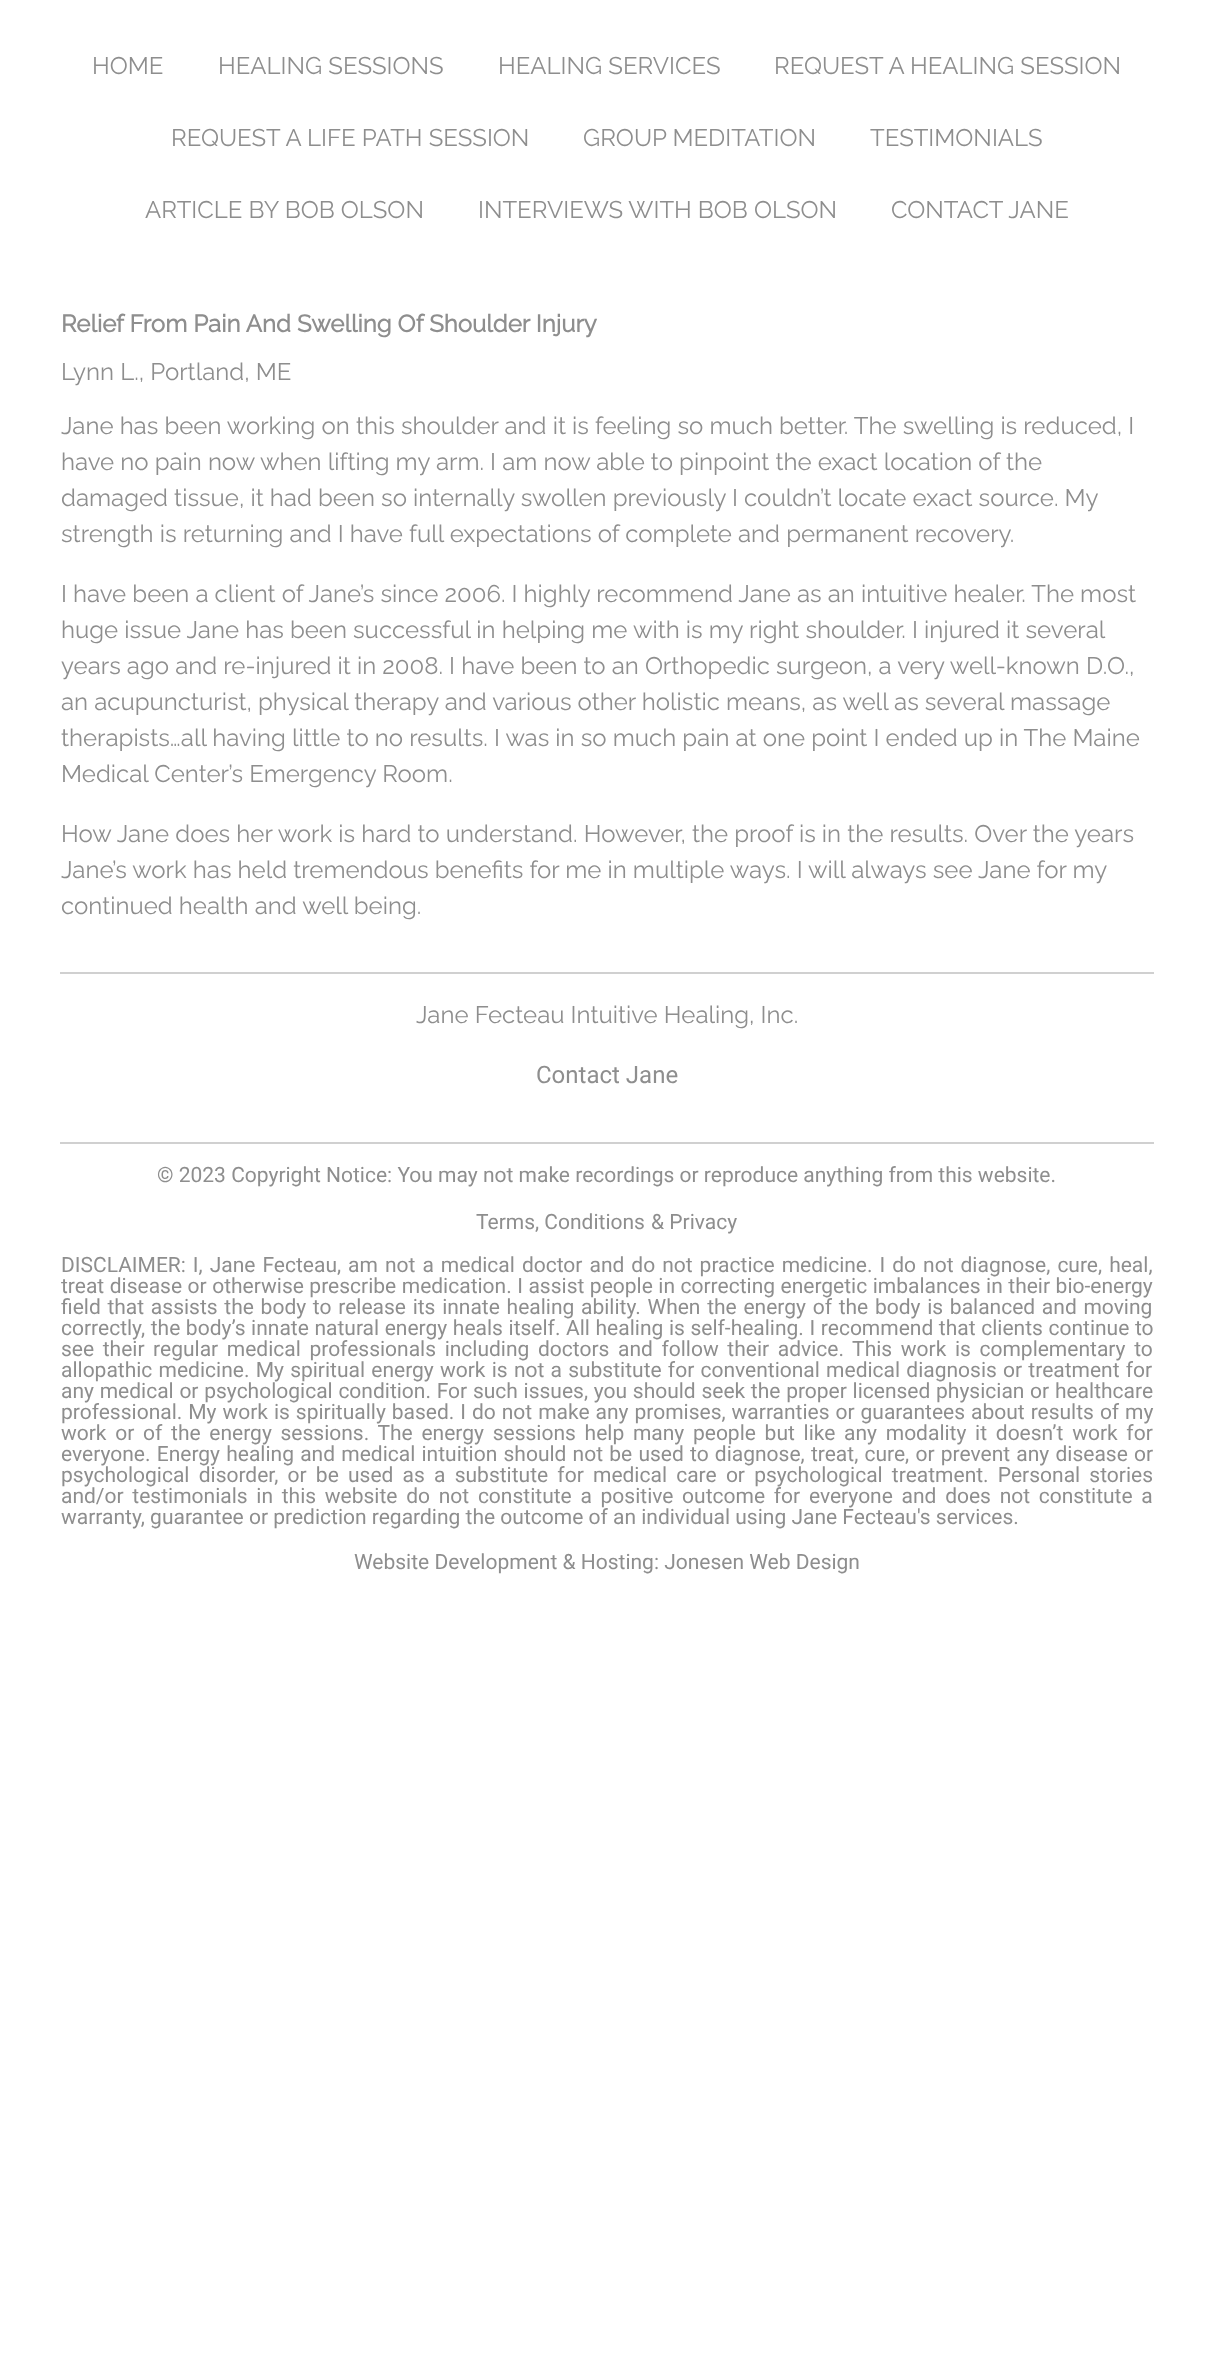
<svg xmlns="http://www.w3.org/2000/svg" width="1213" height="2380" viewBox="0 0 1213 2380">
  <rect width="100%" height="100%" fill="#ffffff"/>
  <text x="92" y="74" font-family="Raleway" font-size="24" font-weight="100" fill="#8e8e8e">HOME</text>
  <text x="218" y="74" font-family="Raleway" font-size="24" font-weight="100" fill="#8e8e8e">HEALING SESSIONS</text>
  <text x="498" y="74" font-family="Raleway" font-size="24" font-weight="100" fill="#8e8e8e">HEALING SERVICES</text>
  <text x="774" y="74" font-family="Raleway" font-size="24" font-weight="100" fill="#8e8e8e">REQUEST A HEALING SESSION</text>
  <text x="171" y="146" font-family="Raleway" font-size="24" font-weight="100" fill="#8e8e8e">REQUEST A LIFE PATH SESSION</text>
  <text x="583" y="146" font-family="Raleway" font-size="24" font-weight="100" fill="#8e8e8e">GROUP MEDITATION</text>
  <text x="870" y="146" font-family="Raleway" font-size="24" font-weight="100" fill="#8e8e8e">TESTIMONIALS</text>
  <text x="145" y="218" font-family="Raleway" font-size="24" font-weight="100" fill="#8e8e8e">ARTICLE BY BOB OLSON</text>
  <text x="478" y="218" font-family="Raleway" font-size="24" font-weight="100" fill="#8e8e8e">INTERVIEWS WITH BOB OLSON</text>
  <text x="891" y="218" font-family="Raleway" font-size="24" font-weight="100" fill="#8e8e8e">CONTACT JANE</text>
  <text x="61" y="332" font-family="Raleway" font-size="24" font-weight="bold" fill="#8e8e8e">Relief From Pain And Swelling Of Shoulder Injury</text>
  <text x="61" y="380" font-family="Raleway" font-size="24" font-weight="100" fill="#8e8e8e">Lynn L., Portland, ME</text>
  <text x="61" y="434" font-family="Raleway" font-size="24" font-weight="100" fill="#8e8e8e">Jane has been working on this shoulder and it is feeling so much better. The swelling is reduced, I</text>
  <text x="61" y="470" font-family="Raleway" font-size="24" font-weight="100" fill="#8e8e8e">have no pain now when lifting my arm. I am now able to pinpoint the exact location of the</text>
  <text x="61" y="506" font-family="Raleway" font-size="24" font-weight="100" fill="#8e8e8e">damaged tissue, it had been so internally swollen previously I couldn’t locate exact source. My</text>
  <text x="61" y="542" font-family="Raleway" font-size="24" font-weight="100" fill="#8e8e8e">strength is returning and I have full expectations of complete and permanent recovery.</text>
  <text x="61" y="602" font-family="Raleway" font-size="24" font-weight="100" fill="#8e8e8e">I have been a client of Jane’s since 2006. I highly recommend Jane as an intuitive healer. The most</text>
  <text x="61" y="638" font-family="Raleway" font-size="24" font-weight="100" fill="#8e8e8e">huge issue Jane has been successful in helping me with is my right shoulder. I injured it several</text>
  <text x="61" y="674" font-family="Raleway" font-size="24" font-weight="100" fill="#8e8e8e">years ago and re-injured it in 2008. I have been to an Orthopedic surgeon, a very well-known D.O.,</text>
  <text x="61" y="710" font-family="Raleway" font-size="24" font-weight="100" fill="#8e8e8e">an acupuncturist, physical therapy and various other holistic means, as well as several massage</text>
  <text x="61" y="746" font-family="Raleway" font-size="24" font-weight="100" fill="#8e8e8e">therapists…all having little to no results. I was in so much pain at one point I ended up in The Maine</text>
  <text x="61" y="782" font-family="Raleway" font-size="24" font-weight="100" fill="#8e8e8e">Medical Center’s Emergency Room.</text>
  <text x="61" y="842" font-family="Raleway" font-size="24" font-weight="100" fill="#8e8e8e">How Jane does her work is hard to understand. However, the proof is in the results. Over the years</text>
  <text x="61" y="878" font-family="Raleway" font-size="24" font-weight="100" fill="#8e8e8e">Jane’s work has held tremendous benefits for me in multiple ways. I will always see Jane for my</text>
  <text x="61" y="914" font-family="Raleway" font-size="24" font-weight="100" fill="#8e8e8e">continued health and well being.</text>
  <rect x="60" y="972" width="1094" height="2" fill="#d0d0d0"/>
  <rect x="60" y="1142" width="1094" height="2" fill="#d0d0d0"/>
  <text x="416" y="1023" font-family="Raleway" font-size="24" font-weight="100" fill="#8e8e8e">Jane Fecteau Intuitive Healing, Inc.</text>
  <text x="536" y="1083" font-family="Roboto" font-size="24" fill="#8e8e8e">Contact Jane</text>
  <text x="157" y="1182" font-family="Roboto" font-size="21" fill="#8e8e8e">© 2023 Copyright Notice: You may not make recordings or reproduce anything from this website.</text>
  <text x="476" y="1229" font-family="Roboto" font-size="21" fill="#8e8e8e">Terms, Conditions</text>
  <text x="651" y="1229" font-family="Roboto" font-size="21" fill="#8e8e8e">&amp; Privacy</text>
  <text x="61" y="1272" word-spacing="1.8" font-family="Roboto" font-size="21" fill="#8e8e8e">DISCLAIMER: I, Jane Fecteau, am not a medical doctor and do not practice medicine. I do not diagnose, cure, heal,</text>
  <text x="61" y="1293" word-spacing="0.3" font-family="Roboto" font-size="21" fill="#8e8e8e">treat disease or otherwise prescribe medication. I assist people in correcting energetic imbalances in their bio-energy</text>
  <text x="61" y="1314" word-spacing="1.5" font-family="Roboto" font-size="21" fill="#8e8e8e">field that assists the body to release its innate healing ability. When the energy of the body is balanced and moving</text>
  <text x="61" y="1335" word-spacing="0.4" font-family="Roboto" font-size="21" fill="#8e8e8e">correctly, the body’s innate natural energy heals itself. All healing is self-healing. I recommend that clients continue to</text>
  <text x="61" y="1356" word-spacing="3.4" font-family="Roboto" font-size="21" fill="#8e8e8e">see their regular medical professionals including doctors and follow their advice. This work is complementary to</text>
  <text x="61" y="1377" word-spacing="1" font-family="Roboto" font-size="21" fill="#8e8e8e">allopathic medicine. My spiritual energy work is not a substitute for conventional medical diagnosis or treatment for</text>
  <text x="61" y="1398" word-spacing="0.5" font-family="Roboto" font-size="21" fill="#8e8e8e">any medical or psychological condition. For such issues, you should seek the proper licensed physician or healthcare</text>
  <text x="61" y="1419" word-spacing="0.75" font-family="Roboto" font-size="21" fill="#8e8e8e">professional. My work is spiritually based. I do not make any promises, warranties or guarantees about results of my</text>
  <text x="61" y="1440" word-spacing="3.5" font-family="Roboto" font-size="21" fill="#8e8e8e">work or of the energy sessions. The energy sessions help many people but like any modality it doesn’t work for</text>
  <text x="61" y="1461" word-spacing="1" font-family="Roboto" font-size="21" fill="#8e8e8e">everyone. Energy healing and medical intuition should not be used to diagnose, treat, cure, or prevent any disease or</text>
  <text x="61" y="1482" word-spacing="4" font-family="Roboto" font-size="21" fill="#8e8e8e">psychological disorder, or be used as a substitute for medical care or psychological treatment. Personal stories</text>
  <text x="61" y="1503" word-spacing="3.5" font-family="Roboto" font-size="21" fill="#8e8e8e">and/or testimonials in this website do not constitute a positive outcome for everyone and does not constitute a</text>
  <text x="61" y="1524" font-family="Roboto" font-size="21" fill="#8e8e8e">warranty, guarantee or prediction regarding the outcome of an individual using Jane Fecteau's services.</text>
  <text x="354" y="1569" font-family="Roboto" font-size="21" fill="#8e8e8e">Website Development &amp; Hosting: Jonesen Web Design</text>
</svg>
